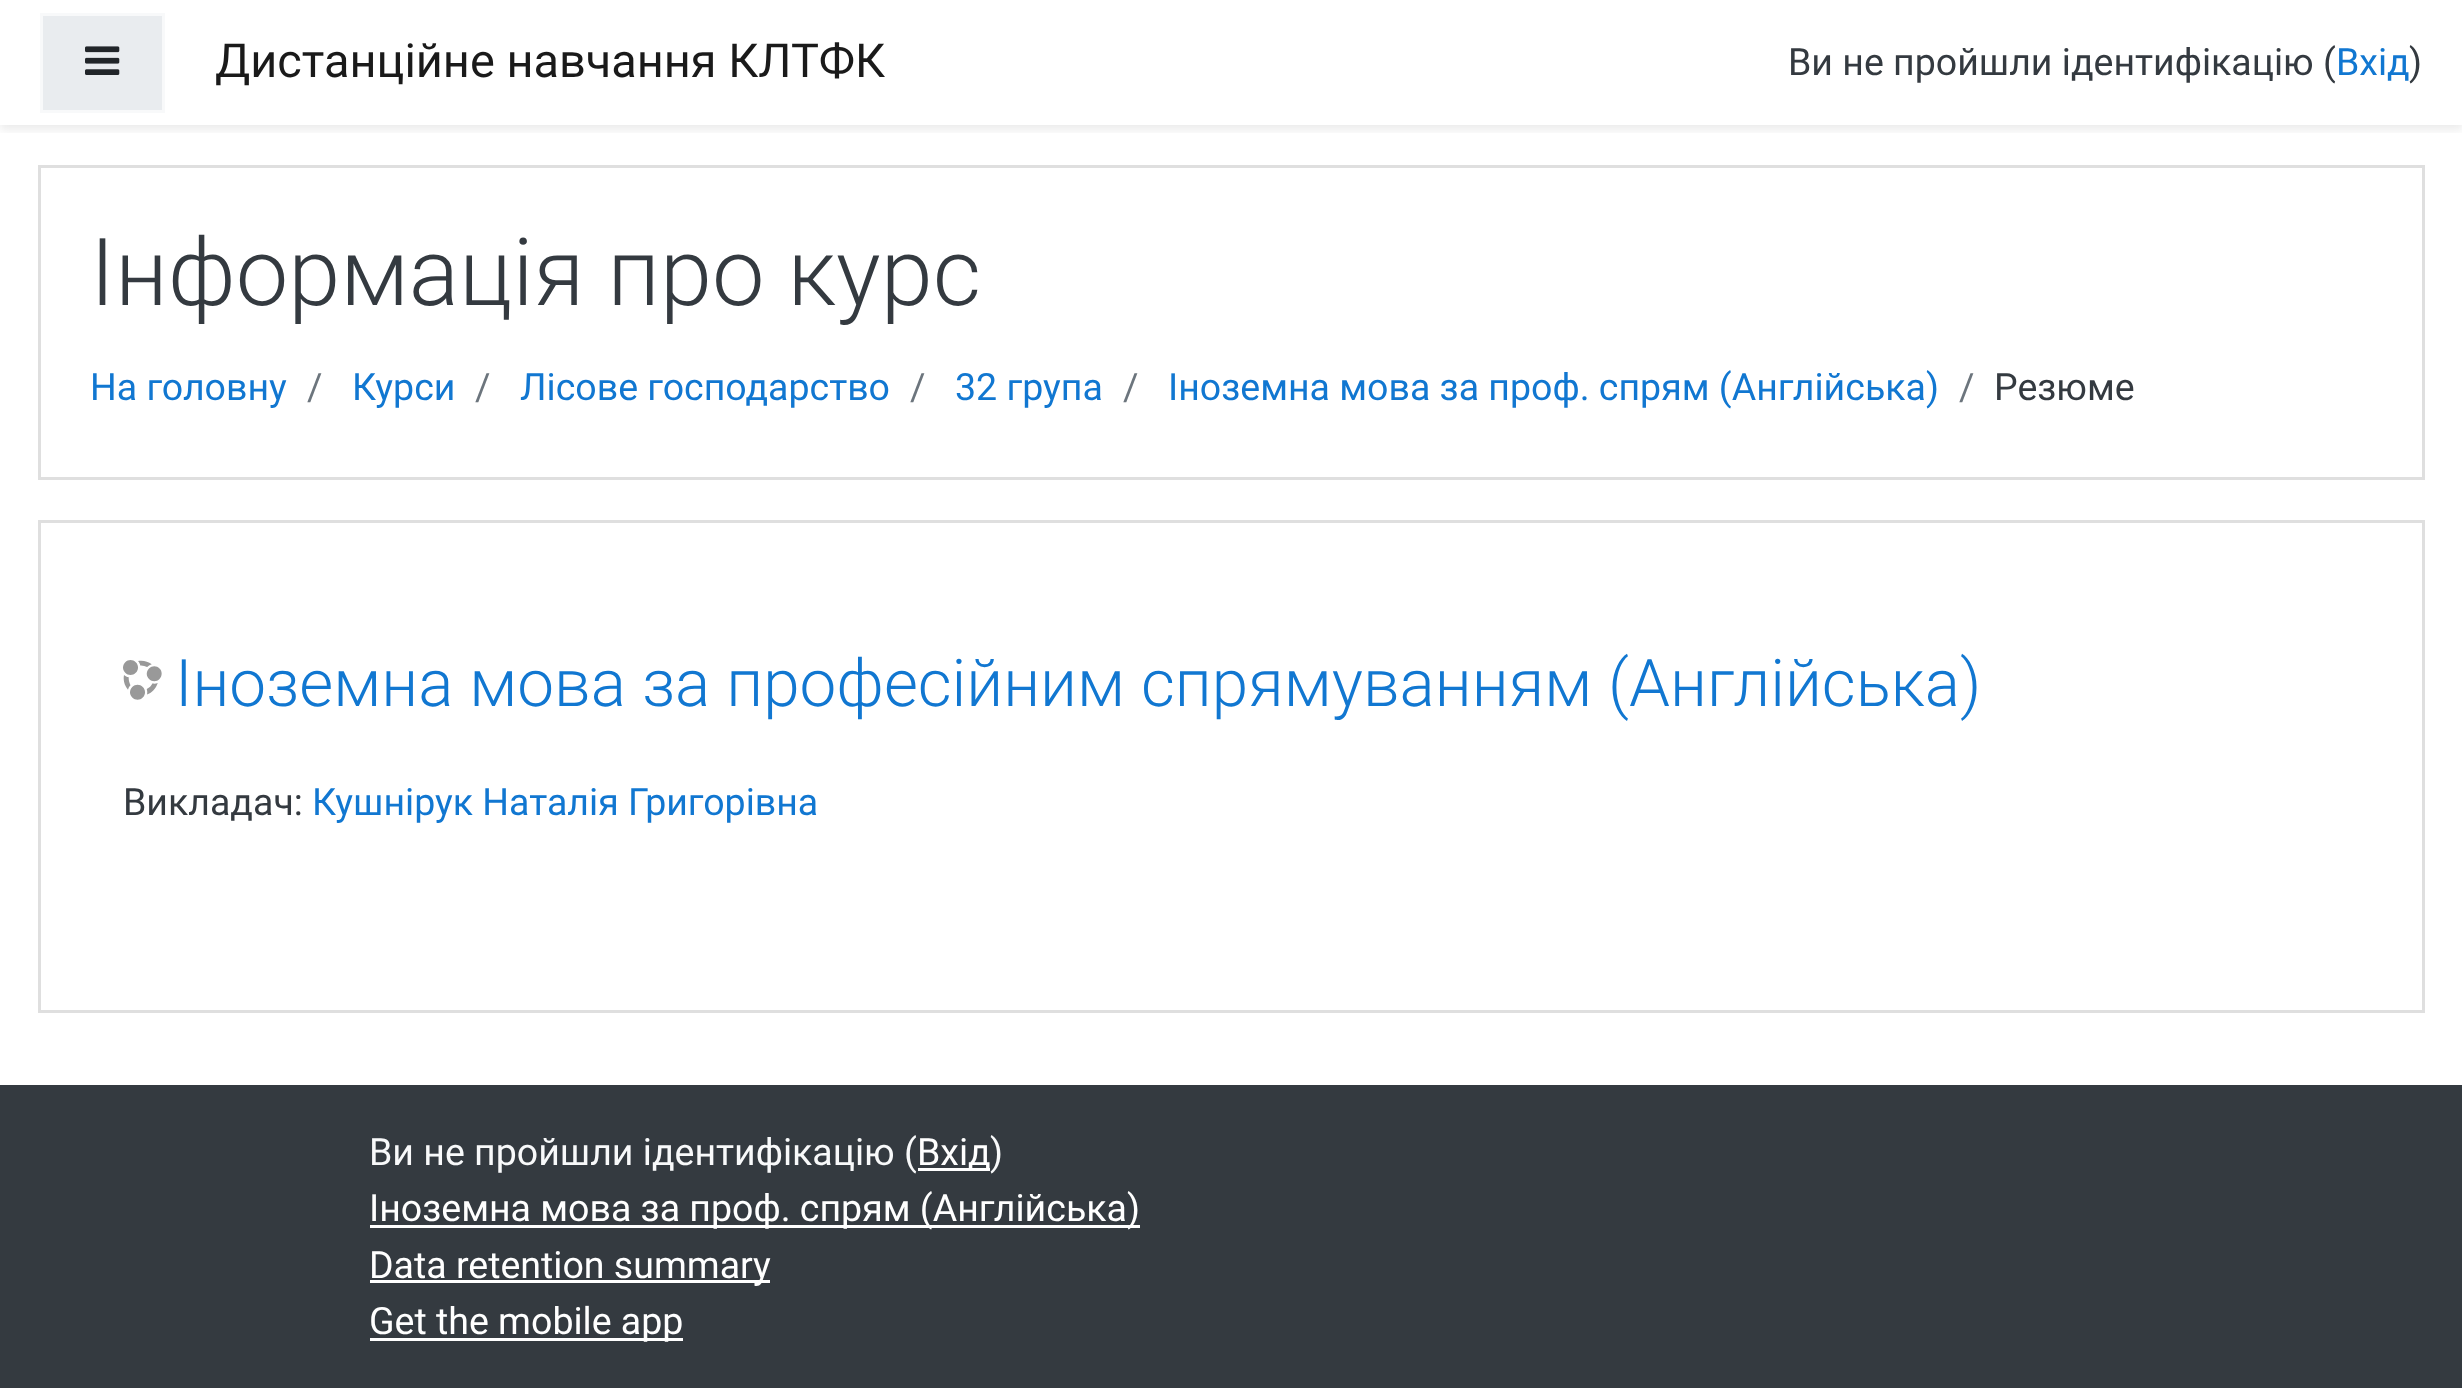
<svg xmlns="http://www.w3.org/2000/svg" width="2462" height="1388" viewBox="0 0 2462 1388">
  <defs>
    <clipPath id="clip1"><rect x="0" y="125" width="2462" height="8"/></clipPath>
    <filter id="blur1" x="-50%" y="-200%" width="200%" height="500%"><feGaussianBlur stdDeviation="5"/></filter>
  </defs>
  <rect width="100%" height="100%" fill="#ffffff"/>
  <g clip-path="url(#clip1)">
    <rect x="0" y="5" width="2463" height="125" fill="#000000" fill-opacity="0.08" filter="url(#blur1)"/>
  </g>
  <rect x="41.5" y="14.5" width="122" height="97" fill="#e9ecef" stroke="#f8f9fa" stroke-width="3"/>
  <image x="85" y="46" width="35" height="29" href="img1.png"/>
  <text x="215" y="77" font-family="Roboto" font-size="46.9" fill="#1a1a1a">Дистанційне навчання КЛТФК</text>
  <text x="1788" y="75" font-family="Roboto" font-size="37.5" fill="#343a40">Ви не пройшли ідентифікацію (</text>
  <text x="2336" y="75" font-family="Roboto" font-size="37.5" fill="#1177d1">Вхід</text>
  <text x="2409" y="75" font-family="Roboto" font-size="37.5" fill="#343a40">)</text>
  <rect x="39.5" y="166.5" width="2384" height="312" fill="none" stroke="#dfdfdf" stroke-width="3"/>
  <text x="90" y="305" font-family="Roboto" font-size="93.75" font-weight="300" fill="#343a40">Інформація про курс</text>
  <text x="90" y="400" font-family="Roboto" font-size="37.5" fill="#1177d1">На головну</text>
  <text x="307" y="400" font-family="Roboto" font-size="37.5" fill="#6c757d">/</text>
  <text x="352" y="400" font-family="Roboto" font-size="37.5" fill="#1177d1">Курси</text>
  <text x="475" y="400" font-family="Roboto" font-size="37.5" fill="#6c757d">/</text>
  <text x="520" y="400" font-family="Roboto" font-size="37.5" fill="#1177d1">Лісове господарство</text>
  <text x="910" y="400" font-family="Roboto" font-size="37.5" fill="#6c757d">/</text>
  <text x="955" y="400" font-family="Roboto" font-size="37.5" fill="#1177d1">32 група</text>
  <text x="1123" y="400" font-family="Roboto" font-size="37.5" fill="#6c757d">/</text>
  <text x="1168" y="400" font-family="Roboto" font-size="37.5" fill="#1177d1">Іноземна мова за проф. спрям (Англійська)</text>
  <text x="1959" y="400" font-family="Roboto" font-size="37.5" fill="#6c757d">/</text>
  <text x="1994" y="400" font-family="Roboto" font-size="37.5" fill="#343a40">Резюме</text>
  <rect x="39.5" y="521.5" width="2384" height="490" fill="none" stroke="#dfdfdf" stroke-width="3"/>
  <image x="123" y="660" width="39" height="40" href="img2.png"/>
  <text x="175" y="706" font-family="Roboto" font-size="65.6" font-weight="300" fill="#1177d1">Іноземна мова за професійним спрямуванням (Англійська)</text>
  <text x="123" y="815" font-family="Roboto" font-size="37.5" fill="#343a40">Викладач:</text>
  <text x="312" y="815" font-family="Roboto" font-size="37.5" fill="#1177d1">Кушнірук Наталія Григорівна</text>
  <rect x="0" y="1085" width="2462" height="303" fill="#343a40"/>
  <text x="369" y="1165" font-family="Roboto" font-size="37.5" fill="#f8f9fa">Ви не пройшли ідентифікацію (</text>
  <rect x="918" y="1168" width="72" height="3" fill="#ffffff"/>
  <text x="917" y="1165" font-family="Roboto" font-size="37.5" fill="#ffffff">Вхід</text>
  <text x="990" y="1165" font-family="Roboto" font-size="37.5" fill="#f8f9fa">)</text>
  <rect x="370" y="1225" width="770" height="3" fill="#ffffff"/>
  <text x="369" y="1221" font-family="Roboto" font-size="37.5" fill="#ffffff">Іноземна мова за проф. спрям (Англійська)</text>
  <rect x="370" y="1280" width="400" height="3" fill="#ffffff"/>
  <text x="369" y="1278" font-family="Roboto" font-size="37.5" fill="#ffffff">Data retention summary</text>
  <rect x="370" y="1338" width="313" height="3" fill="#ffffff"/>
  <text x="369" y="1334" font-family="Roboto" font-size="37.5" fill="#ffffff">Get the mobile app</text>
</svg>
